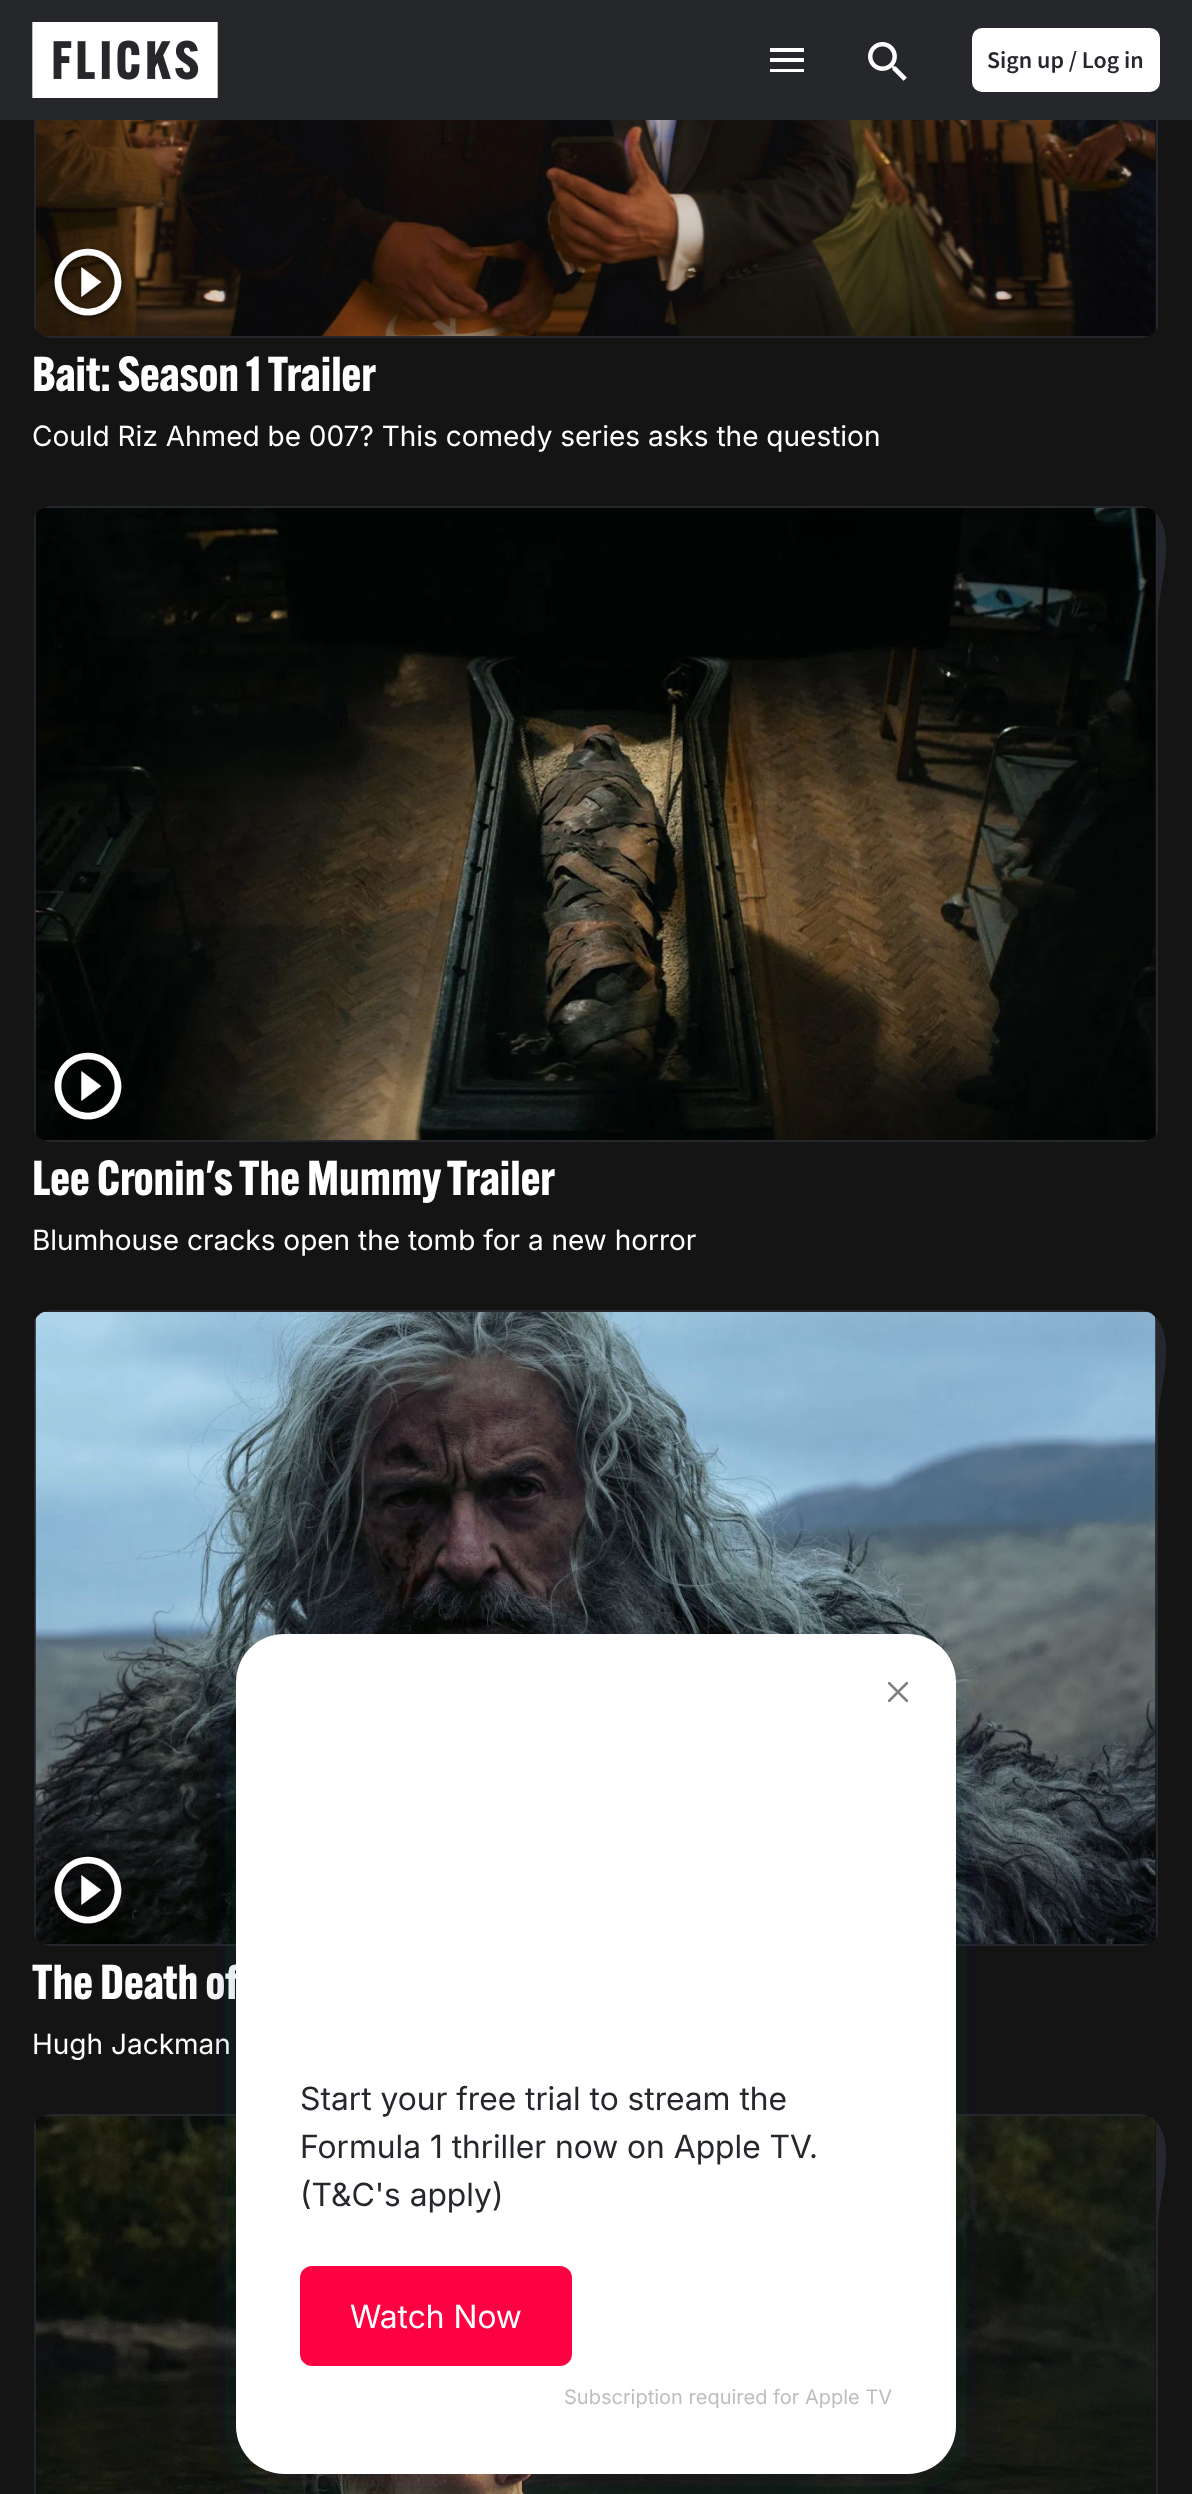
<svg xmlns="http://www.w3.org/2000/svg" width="1192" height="2494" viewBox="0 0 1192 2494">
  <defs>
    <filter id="blur1" x="-50%" y="-200%" width="200%" height="500%"><feGaussianBlur stdDeviation="32"/></filter>
    <clipPath id="clip1"><rect x="888" y="1682" width="20" height="20"/></clipPath>
  </defs>
  <rect width="100%" height="100%" fill="#141414"/>
  <path d="M44-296H1149C1146-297 1143-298 1140-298H52C49-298 46-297 43-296ZM1156-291V-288V328V331L1158 327V-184C1158-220 1178-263 1156-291ZM1140 338C1143 338 1146 337 1149 336H43C46 337 49 338 52 338ZM34 327L36 331V328V-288V-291L34-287Z" fill="#26272c" fill-rule="evenodd"/>
  <rect x="0" y="0" width="1192" height="120" fill="#26272b"/>
  <image x="32" y="22" width="186" height="76" href="img1.png"/>
  <rect x="770" y="48" width="34" height="4" fill="#ffffff"/>
  <rect x="770" y="58" width="34" height="4" fill="#ffffff"/>
  <rect x="770" y="69" width="34" height="3" fill="#ffffff"/>
  <image x="868" y="42" width="39" height="39" href="img2.png"/>
  <rect x="972" y="28" width="188" height="64" rx="10" fill="#ffffff"/>
  <text x="987" y="68" font-family="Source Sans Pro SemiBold" font-size="24" font-weight="600" fill="#26272c">Sign up / Log in</text>
  <image x="35" y="120" width="1121" height="216" href="img3.png"/>
  <image x="52" y="248" width="73" height="74" href="img4.png"/>
  <text x="32" y="391" font-family="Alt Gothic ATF" font-size="48" font-weight="bold" fill="#ffffff">Bait: Season 1 Trailer</text>
  <text x="32" y="446" font-family="Inter" font-size="28" fill="#ffffff">Could Riz Ahmed be 007? This comedy series asks the question</text>
  <path d="M44 508H1149C1146 507 1143 506 1140 506H52C49 506 46 507 43 508ZM1156 513V516V1132V1135L1158 1131V620C1158 584 1178 541 1156 513ZM1140 1142C1143 1142 1146 1141 1149 1140H43C46 1141 49 1142 52 1142ZM34 1131L36 1135V1132V516V513L34 517Z" fill="#26272c" fill-rule="evenodd"/>
  <image x="35" y="508" width="1121" height="632" href="img5.png"/>
  <image x="54" y="1052" width="68" height="68" href="img6.png"/>
  <text x="32" y="1195" font-family="Alt Gothic ATF" font-size="48" font-weight="bold" fill="#ffffff">Lee Cronin's The Mummy Trailer</text>
  <text x="32" y="1250" font-family="Inter" font-size="28" fill="#ffffff">Blumhouse cracks open the tomb for a new horror</text>
  <path d="M44 1312H1149C1146 1311 1143 1310 1140 1310H52C49 1310 46 1311 43 1312ZM1156 1317V1320V1936V1939L1158 1935V1424C1158 1388 1178 1345 1156 1317ZM1140 1946C1143 1946 1146 1945 1149 1944H43C46 1945 49 1946 52 1946ZM34 1935L36 1939V1936V1320V1317L34 1321Z" fill="#26272c" fill-rule="evenodd"/>
  <image x="35" y="1312" width="1121" height="632" href="img7.png"/>
  <image x="54" y="1856" width="68" height="68" href="img8.png"/>
  <text x="32" y="1999" font-family="Alt Gothic ATF" font-size="48" font-weight="bold" fill="#ffffff">The Death of</text>
  <text x="32" y="2054" font-family="Inter" font-size="28" fill="#ffffff">Hugh Jackman</text>
  <path d="M44 2116H1149C1146 2115 1143 2114 1140 2114H52C49 2114 46 2115 43 2116ZM1156 2121V2124V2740V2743L1158 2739V2228C1158 2192 1178 2149 1156 2121ZM1140 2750C1143 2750 1146 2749 1149 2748H43C46 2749 49 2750 52 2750ZM34 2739L36 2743V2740V2124V2121L34 2125Z" fill="#26272c" fill-rule="evenodd"/>
  <image x="35" y="2116" width="1121" height="378" href="img9.png"/>
  <rect x="246" y="1714" width="700" height="772" rx="38" fill="#363d4d" fill-opacity="0.15" filter="url(#blur1)"/>
  <rect x="246" y="1666" width="700" height="820" rx="38" fill="#363d4d" fill-opacity="0.15" filter="url(#blur1)"/>
  <rect x="236" y="1634" width="720" height="840" rx="48" fill="#ffffff"/>
  <g clip-path="url(#clip1)">
    <path d="M889 1683L907 1701M907 1683L889 1701" fill="none" stroke="#808080" stroke-width="2.5" stroke-linecap="round" stroke-linejoin="round"/>
  </g>
  <text x="300" y="2110" font-family="'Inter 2'" font-size="32" fill="#26272c">Start your free trial to stream the</text>
  <text x="300" y="2158" font-family="'Inter 2'" font-size="32" fill="#26272c">Formula 1 thriller now on Apple TV.</text>
  <text x="300" y="2206" font-family="'Inter 2'" font-size="32" fill="#26272c">(T&amp;C's apply)</text>
  <rect x="300" y="2266" width="272" height="100" rx="12" fill="#fd0242"/>
  <text x="350" y="2328" font-family="'Inter 2'" font-size="32" fill="#ffffff">Watch Now</text>
  <text x="564" y="2404" font-family="Inter" font-size="20" fill="#bebec0">Subscription required for Apple TV</text>
</svg>
